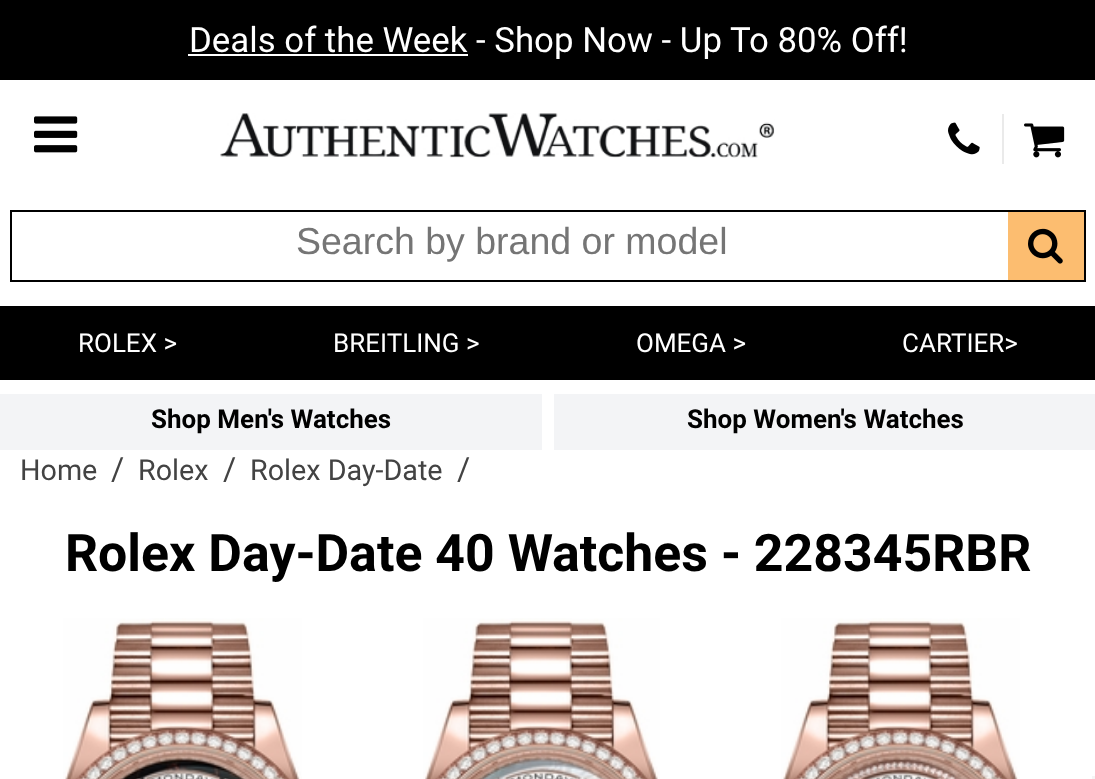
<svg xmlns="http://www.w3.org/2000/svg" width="1095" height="779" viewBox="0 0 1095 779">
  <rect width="100%" height="100%" fill="#ffffff"/>
  <rect x="0" y="0" width="1095" height="80" fill="#000000"/>
  <rect x="188" y="54" width="280" height="2" fill="#ffffff"/>
  <text x="189" y="52" font-family="Roboto" font-size="34.85" fill="#ffffff">Deals of the Week - Shop Now - Up To 80% Off!</text>
  <image x="34" y="116" width="44" height="37" href="img1.png"/>
  <image x="220" y="113" width="555" height="45" href="img2.png"/>
  <image x="948" y="122" width="32" height="33" href="img3.png"/>
  <rect x="1002" y="114" width="2" height="50" fill="#eaeaea"/>
  <image x="1024" y="123" width="41" height="35" href="img4.png"/>
  <rect x="11" y="211" width="1074" height="70" fill="none" stroke="#000000" stroke-width="2"/>
  <text x="296" y="254" font-family="Liberation Sans" font-size="37.5" fill="#757575">Search by brand or model</text>
  <rect x="1008" y="212" width="76" height="68" fill="#fcbd70"/>
  <image x="1028" y="228" width="35" height="36" href="img5.png"/>
  <rect x="0" y="306" width="1095" height="74" fill="#000000"/>
  <text x="78" y="352" font-family="Roboto" font-size="26" fill="#ffffff">ROLEX &gt;</text>
  <text x="333" y="352" font-family="Roboto" font-size="26" fill="#ffffff">BREITLING &gt;</text>
  <text x="636" y="352" font-family="Roboto" font-size="26" fill="#ffffff">OMEGA &gt;</text>
  <text x="902" y="352" font-family="Roboto" font-size="26" fill="#ffffff">CARTIER&gt;</text>
  <rect x="0" y="394" width="542" height="56" fill="#f3f4f6"/>
  <text x="151" y="428" font-family="Roboto" font-size="26" font-weight="bold" fill="#000000">Shop Men's Watches</text>
  <rect x="554" y="394" width="541" height="56" fill="#f3f4f6"/>
  <text x="687" y="428" font-family="Roboto" font-size="26" font-weight="bold" fill="#000000">Shop Women's Watches</text>
  <text x="20" y="480" font-family="Roboto" font-size="28.75" fill="#434343">Home</text>
  <text x="111" y="480" font-family="Roboto" font-size="32" fill="#434343">/</text>
  <text x="138" y="480" font-family="Roboto" font-size="28.75" fill="#434343">Rolex</text>
  <text x="223" y="480" font-family="Roboto" font-size="32" fill="#434343">/</text>
  <text x="250" y="480" font-family="Roboto" font-size="28.75" fill="#434343">Rolex Day-Date</text>
  <text x="457" y="480" font-family="Roboto" font-size="32" fill="#434343">/</text>
  <text x="65" y="571" font-family="Roboto" font-size="51.8" font-weight="bold" fill="#000000">Rolex Day-Date 40 Watches - 228345RBR</text>
  <image x="63" y="618" width="239" height="161" href="img6.png"/>
  <image x="423" y="618" width="237" height="161" href="img7.png"/>
  <image x="781" y="618" width="239" height="161" href="img8.png"/>
  <rect x="1092" y="776" width="3" height="3" fill="#f5f5f5"/>
</svg>
